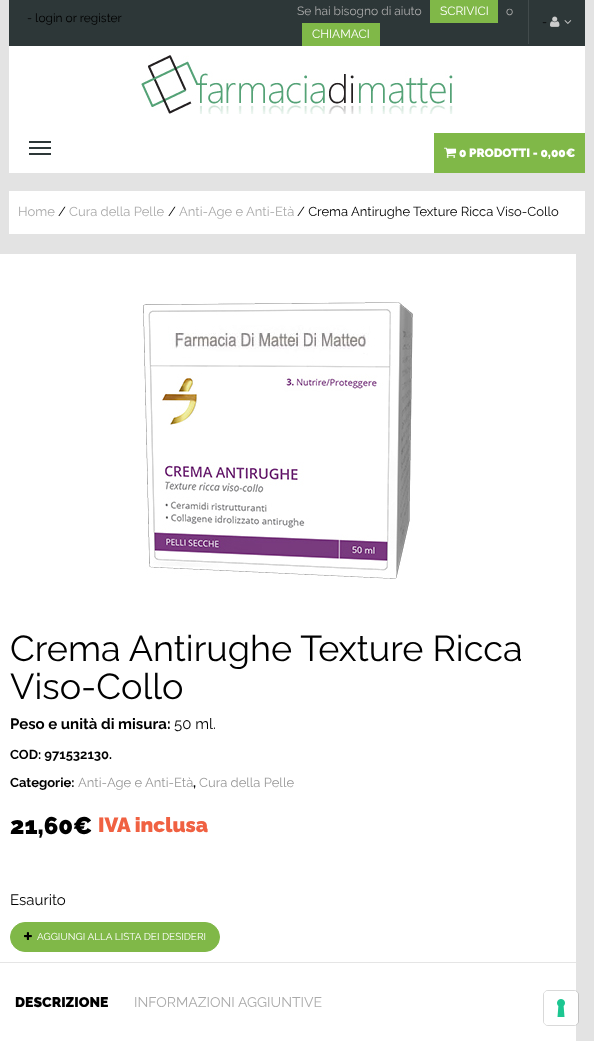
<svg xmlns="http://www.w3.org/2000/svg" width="594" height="1041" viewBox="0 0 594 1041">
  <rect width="100%" height="100%" fill="#e3e3e3"/>
  <rect x="9" y="0" width="576" height="46" fill="#2d3738"/>
  <text x="27" y="22" font-family="Raleway" font-size="12" fill="#000000">- login or register</text>
  <text x="297" y="15" font-family="Raleway" font-size="12" fill="#aaaaaa">Se hai bisogno di aiuto</text>
  <rect x="430" y="0" width="68" height="23" fill="#80b848"/>
  <text x="440" y="15" font-family="Raleway" font-size="12" fill="#ffffff">SCRIVICI</text>
  <text x="506" y="15" font-family="Raleway" font-size="12" fill="#aaaaaa">o</text>
  <rect x="302" y="23" width="78" height="23" fill="#80b848"/>
  <text x="312" y="38" font-family="Raleway" font-size="12" fill="#ffffff">CHIAMACI</text>
  <rect x="528" y="0" width="1" height="44" fill="#424b4c"/>
  <text x="542" y="26" font-family="Raleway" font-size="12" fill="#000000">-</text>
  <image x="550" y="16" width="10" height="11" href="img1.png"/>
  <image x="564" y="20" width="8" height="4" href="img2.png"/>
  <rect x="9" y="46" width="576" height="127" fill="#ffffff"/>
  <image x="141" y="55" width="312" height="59" href="img3.png"/>
  <rect x="29" y="141" width="22" height="2" fill="#2d3738"/>
  <rect x="29" y="147" width="22" height="2" fill="#2d3738"/>
  <rect x="29" y="153" width="22" height="2" fill="#2d3738"/>
  <rect x="434" y="133" width="151" height="40" fill="#80b848"/>
  <image x="444" y="147" width="13" height="11" href="img4.png"/>
  <text x="459" y="157" font-family="Raleway" font-size="12" font-weight="900" fill="#ffffff">0 PRODOTTI - 0,00€</text>
  <rect x="9" y="191" width="576" height="43" fill="#ffffff"/>
  <text x="18" y="216" font-family="Raleway" font-size="13" fill="#aaaaaa">Home</text>
  <text x="58" y="216" font-family="Raleway" font-size="13" fill="#000000">/</text>
  <text x="69" y="216" font-family="Raleway" font-size="13" fill="#aaaaaa">Cura della Pelle</text>
  <text x="168" y="216" font-family="Raleway" font-size="13" fill="#000000">/</text>
  <text x="179" y="216" font-family="Raleway" font-size="13" fill="#aaaaaa">Anti-Age e Anti-Età</text>
  <text x="297" y="216" font-family="Raleway" font-size="13" fill="#000000">/ Crema Antirughe Texture Ricca Viso-Collo</text>
  <rect x="0" y="254" width="576" height="787" fill="#ffffff"/>
  <rect x="0" y="962" width="576" height="1" fill="#e5e5e5"/>
  <image x="143" y="302" width="270" height="277" href="img5.png"/>
  <text x="10" y="661" font-family="Raleway" font-size="36" fill="#000000">Crema Antirughe Texture Ricca</text>
  <text x="10" y="699" font-family="Raleway" font-size="36" fill="#000000">Viso-Collo</text>
  <text x="10" y="729" font-family="Raleway" font-size="15" font-weight="bold" fill="#000000">Peso e unità di misura:</text>
  <text x="174" y="729" font-family="Raleway" font-size="15" fill="#000000">50 ml.</text>
  <text x="10" y="759" font-family="Raleway" font-size="13" font-weight="bold" fill="#000000">COD: 971532130.</text>
  <text x="10" y="787" font-family="Raleway" font-size="13" font-weight="bold" fill="#000000">Categorie:</text>
  <text x="78" y="787" font-family="Raleway" font-size="13" fill="#999999">Anti-Age e Anti-Età</text>
  <text x="193" y="787" font-family="Raleway" font-size="13" font-weight="bold" fill="#000000">,</text>
  <text x="199" y="787" font-family="Raleway" font-size="13" fill="#999999">Cura della Pelle</text>
  <text x="10" y="834" font-family="Raleway" font-size="24" font-weight="900" fill="#000000">21,60€</text>
  <text x="98" y="832" font-family="Raleway" font-size="20.5" font-weight="900" fill="#f06142">IVA inclusa</text>
  <text x="10" y="905" font-family="Raleway" font-size="15" fill="#000000">Esaurito</text>
  <rect x="10.5" y="922.5" width="209" height="29" rx="14.5" fill="#80b848" stroke="#80b848"/>
  <image x="24" y="932" width="8" height="8" href="img6.png"/>
  <text x="37" y="940" font-family="Raleway" font-size="10" fill="#ffffff">AGGIUNGI ALLA LISTA DEI DESIDERI</text>
  <text x="15" y="1007" font-family="Raleway" font-size="14" font-weight="900" fill="#000000">DESCRIZIONE</text>
  <text x="134" y="1007" font-family="Raleway" font-size="14" fill="#aaaaaa">INFORMAZIONI AGGIUNTIVE</text>
  <rect x="543.5" y="990.5" width="35" height="35" rx="4.5" fill="none" stroke="#000000" stroke-opacity="0.15"/>
  <rect x="544" y="991" width="34" height="34" rx="4" fill="#ffffff"/>
  <image x="557" y="999" width="8" height="18" href="img7.png"/>
</svg>
